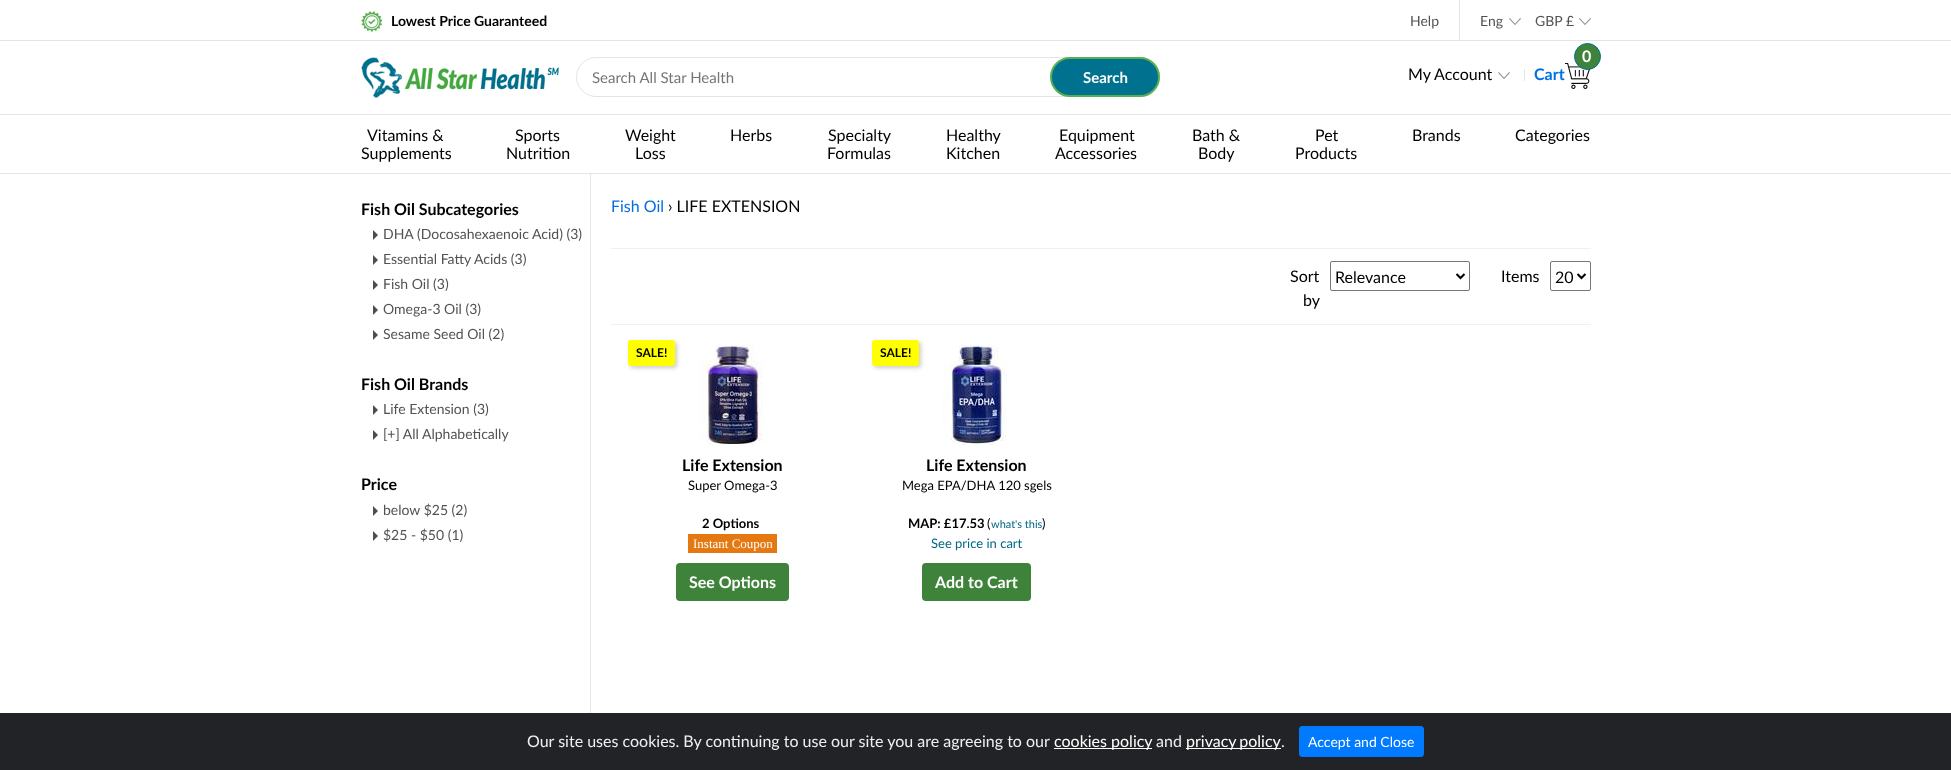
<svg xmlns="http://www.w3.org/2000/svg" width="1951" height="770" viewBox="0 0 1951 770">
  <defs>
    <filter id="blur1" x="-50%" y="-200%" width="200%" height="500%"><feGaussianBlur stdDeviation="2"/></filter>
  </defs>
  <rect width="100%" height="100%" fill="#ffffff"/>
  <image x="361" y="11" width="21" height="21" href="img1.png"/>
  <text x="391" y="26" font-family="Lato" font-size="14" font-weight="bold" fill="#000000">Lowest Price Guaranteed</text>
  <rect x="1459" y="0" width="1" height="40" fill="#e4e4e4"/>
  <text x="1410" y="26" font-family="Lato" font-size="14" fill="#525252">Help</text>
  <text x="1480" y="26" font-family="Lato" font-size="14" fill="#525252">Eng</text>
  <image x="1509" y="18" width="12" height="7" href="img2.png"/>
  <text x="1535" y="26" font-family="Lato" font-size="14" fill="#525252">GBP</text>
  <text x="1566" y="26" font-family="Lato" font-size="14" fill="#525252">£</text>
  <image x="1579" y="18" width="12" height="7" href="img2.png"/>
  <rect x="0" y="40" width="1951" height="1" fill="#e4e4e4"/>
  <rect x="0" y="114" width="1951" height="1" fill="#e4e4e4"/>
  <image x="361" y="57" width="198" height="41" href="img3.png"/>
  <rect x="576.5" y="57.5" width="583" height="39" rx="19.5" fill="none" stroke="#e4e4e4"/>
  <text x="592" y="83" font-family="Lato" font-size="15" fill="#757575">Search All Star Health</text>
  <rect x="1051" y="58" width="108" height="38" rx="19" fill="#00728f" stroke="#59b052" stroke-width="2"/>
  <text x="1083" y="83" font-family="Lato" font-size="15" font-weight="bold" fill="#ffffff">Search</text>
  <text x="1408" y="80" font-family="Lato" font-size="16" fill="#000000">My Account</text>
  <image x="1498" y="72" width="12" height="7" href="img2.png"/>
  <rect x="1524" y="69" width="1" height="12" fill="#e4e4e4"/>
  <image x="1565" y="63" width="25" height="26" href="img4.png"/>
  <circle cx="1587.5" cy="56.5" r="13" fill="#3f833a" stroke="#00728f"/>
  <text x="1582" y="62" font-family="Lato" font-size="16" font-weight="bold" fill="#ffffff">0</text>
  <text x="1534" y="80" font-family="Lato" font-size="16" font-weight="bold" fill="#006fe6">Cart</text>
  <rect x="0" y="173" width="1951" height="1" fill="#e4e4e4"/>
  <text x="367" y="141" font-family="Lato" font-size="16" fill="#000000">Vitamins &amp;</text>
  <text x="361" y="159" font-family="Lato" font-size="16" fill="#000000">Supplements</text>
  <text x="515" y="141" font-family="Lato" font-size="16" fill="#000000">Sports</text>
  <text x="506" y="159" font-family="Lato" font-size="16" fill="#000000">Nutrition</text>
  <text x="625" y="141" font-family="Lato" font-size="16" fill="#000000">Weight</text>
  <text x="635" y="159" font-family="Lato" font-size="16" fill="#000000">Loss</text>
  <text x="730" y="141" font-family="Lato" font-size="16" fill="#000000">Herbs</text>
  <text x="828" y="141" font-family="Lato" font-size="16" fill="#000000">Specialty</text>
  <text x="827" y="159" font-family="Lato" font-size="16" fill="#000000">Formulas</text>
  <text x="946" y="141" font-family="Lato" font-size="16" fill="#000000">Healthy</text>
  <text x="946" y="159" font-family="Lato" font-size="16" fill="#000000">Kitchen</text>
  <text x="1059" y="141" font-family="Lato" font-size="16" fill="#000000">Equipment</text>
  <text x="1055" y="159" font-family="Lato" font-size="16" fill="#000000">Accessories</text>
  <text x="1192" y="141" font-family="Lato" font-size="16" fill="#000000">Bath &amp;</text>
  <text x="1198" y="159" font-family="Lato" font-size="16" fill="#000000">Body</text>
  <text x="1315" y="141" font-family="Lato" font-size="16" fill="#000000">Pet</text>
  <text x="1295" y="159" font-family="Lato" font-size="16" fill="#000000">Products</text>
  <text x="1412" y="141" font-family="Lato" font-size="16" fill="#000000">Brands</text>
  <text x="1515" y="141" font-family="Lato" font-size="16" fill="#000000">Categories</text>
  <rect x="590" y="174" width="1" height="539" fill="#e4e4e4"/>
  <text x="361" y="215" font-family="Lato" font-size="16" font-weight="bold" fill="#000000">Fish Oil Subcategories</text>
  <path d="M373 240V230L378 235Z" fill="#4e4e4e"/>
  <text x="383" y="239" font-family="Lato" font-size="14" fill="#525252">DHA (Docosahexaenoic Acid) (3)</text>
  <path d="M373 265V255L378 260Z" fill="#4e4e4e"/>
  <text x="383" y="264" font-family="Lato" font-size="14" fill="#525252">Essential Fatty Acids (3)</text>
  <path d="M373 290V280L378 285Z" fill="#4e4e4e"/>
  <text x="383" y="289" font-family="Lato" font-size="14" fill="#525252">Fish Oil (3)</text>
  <path d="M373 315V305L378 310Z" fill="#4e4e4e"/>
  <text x="383" y="314" font-family="Lato" font-size="14" fill="#525252">Omega-3 Oil (3)</text>
  <path d="M373 340V330L378 335Z" fill="#4e4e4e"/>
  <text x="383" y="339" font-family="Lato" font-size="14" fill="#525252">Sesame Seed Oil (2)</text>
  <text x="361" y="390" font-family="Lato" font-size="16" font-weight="bold" fill="#000000">Fish Oil Brands</text>
  <path d="M373 415V405L378 410Z" fill="#4e4e4e"/>
  <text x="383" y="414" font-family="Lato" font-size="14" fill="#525252">Life Extension (3)</text>
  <path d="M373 440V430L378 435Z" fill="#4e4e4e"/>
  <text x="383" y="439" font-family="Lato" font-size="14" fill="#525252">[+] All Alphabetically</text>
  <text x="361" y="490" font-family="Lato" font-size="16" font-weight="bold" fill="#000000">Price</text>
  <path d="M373 516V506L378 511Z" fill="#4e4e4e"/>
  <text x="383" y="515" font-family="Lato" font-size="14" fill="#525252">below $25 (2)</text>
  <path d="M373 541V531L378 536Z" fill="#4e4e4e"/>
  <text x="383" y="540" font-family="Lato" font-size="14" fill="#525252">$25 - $50 (1)</text>
  <text x="611" y="212" font-family="Lato" font-size="16" fill="#066fe0">Fish Oil</text>
  <text x="668" y="212" font-family="Lato" font-size="16" fill="#000000">› LIFE EXTENSION</text>
  <rect x="611" y="248" width="980" height="1" fill="#f0f0f0"/>
  <rect x="611" y="324" width="980" height="1" fill="#f0f0f0"/>
  <text x="1290" y="282" font-family="Lato" font-size="16" fill="#000000">Sort</text>
  <text x="1303" y="306" font-family="Lato" font-size="16" fill="#000000">by</text>
  <rect x="1330.5" y="261.5" width="139" height="29" rx="1.5" fill="none" stroke="#767676"/>
  <path d="M1456.5 274L1460.5 278L1464.5 274" fill="none" stroke="#000000" stroke-width="2"/>
  <text x="1335" y="283" font-family="Lato" font-size="16" fill="#000000">Relevance</text>
  <text x="1501" y="282" font-family="Lato" font-size="16" fill="#000000">Items</text>
  <rect x="1550.5" y="261.5" width="40" height="29" rx="1.5" fill="none" stroke="#767676"/>
  <path d="M1577.5 274L1581.5 278L1585.5 274" fill="none" stroke="#000000" stroke-width="2"/>
  <text x="1555" y="283" font-family="Lato" font-size="16" fill="#000000">20</text>
  <rect x="630" y="342" width="47" height="26" rx="3" fill="#000000" fill-opacity="0.2" filter="url(#blur1)"/>
  <rect x="628" y="340" width="47" height="26" rx="3" fill="#ffff00"/>
  <text x="636" y="357" font-family="Lato" font-size="12" font-weight="bold" fill="#000000">SALE!</text>
  <image x="699" y="345" width="64" height="100" href="img5.png"/>
  <text x="682" y="471" font-family="Lato" font-size="16" font-weight="bold" fill="#000000">Life Extension</text>
  <text x="688" y="490" font-family="Lato" font-size="13" fill="#000000">Super Omega-3</text>
  <text x="702" y="528" font-family="Lato" font-size="13" font-weight="bold" fill="#000000">2 Options</text>
  <rect x="688" y="534" width="89" height="19" fill="#e47911"/>
  <text x="693" y="548" font-family="Liberation Serif" font-size="13" fill="#ffffff">Instant Coupon</text>
  <rect x="676" y="563" width="113" height="38" rx="4" fill="#3f833a"/>
  <text x="689" y="588" font-family="Lato" font-size="16" font-weight="bold" fill="#ffffff">See Options</text>
  <rect x="874" y="342" width="47" height="26" rx="3" fill="#000000" fill-opacity="0.2" filter="url(#blur1)"/>
  <rect x="872" y="340" width="47" height="26" rx="3" fill="#ffff00"/>
  <text x="880" y="357" font-family="Lato" font-size="12" font-weight="bold" fill="#000000">SALE!</text>
  <image x="943" y="345" width="64" height="100" href="img6.png"/>
  <text x="926" y="471" font-family="Lato" font-size="16" font-weight="bold" fill="#000000">Life Extension</text>
  <text x="902" y="490" font-family="Lato" font-size="13" fill="#000000">Mega EPA/DHA 120 sgels</text>
  <text x="908" y="528" font-family="Lato" font-size="13" font-weight="bold" fill="#000000">MAP: £17.53</text>
  <text x="987" y="528" font-family="Lato" font-size="13" fill="#000000">(</text>
  <text x="991" y="528" font-family="Lato" font-size="11" fill="#006784">what's this</text>
  <text x="1042" y="528" font-family="Lato" font-size="13" fill="#000000">)</text>
  <text x="931" y="548" font-family="Lato" font-size="13" fill="#006784">See price in cart</text>
  <rect x="922" y="563" width="109" height="38" rx="4" fill="#3f833a"/>
  <text x="935" y="588" font-family="Lato" font-size="16" font-weight="bold" fill="#ffffff">Add to Cart</text>
  <rect x="0" y="713" width="1951" height="57" fill="#212327"/>
  <text x="527" y="747" font-family="Lato" font-size="16" fill="#ecf0f1">Our site uses cookies. By continuing to use our site you are agreeing to our</text>
  <rect x="1054" y="748" width="98" height="1" fill="#ffffff"/>
  <text x="1054" y="747" font-family="Lato" font-size="16" fill="#ffffff">cookies policy</text>
  <text x="1156" y="747" font-family="Lato" font-size="16" fill="#ecf0f1">and</text>
  <rect x="1186" y="748" width="95" height="1" fill="#ffffff"/>
  <text x="1186" y="747" word-spacing="-1" font-family="Lato" font-size="16" fill="#ffffff">privacy policy</text>
  <text x="1281" y="747" font-family="Lato" font-size="16" fill="#ecf0f1">.</text>
  <rect x="1299.5" y="726.5" width="124" height="30" rx="2.5" fill="#007bff" stroke="#007bff"/>
  <text x="1308" y="747" font-family="Lato" font-size="14" fill="#ffffff">Accept and Close</text>
</svg>
